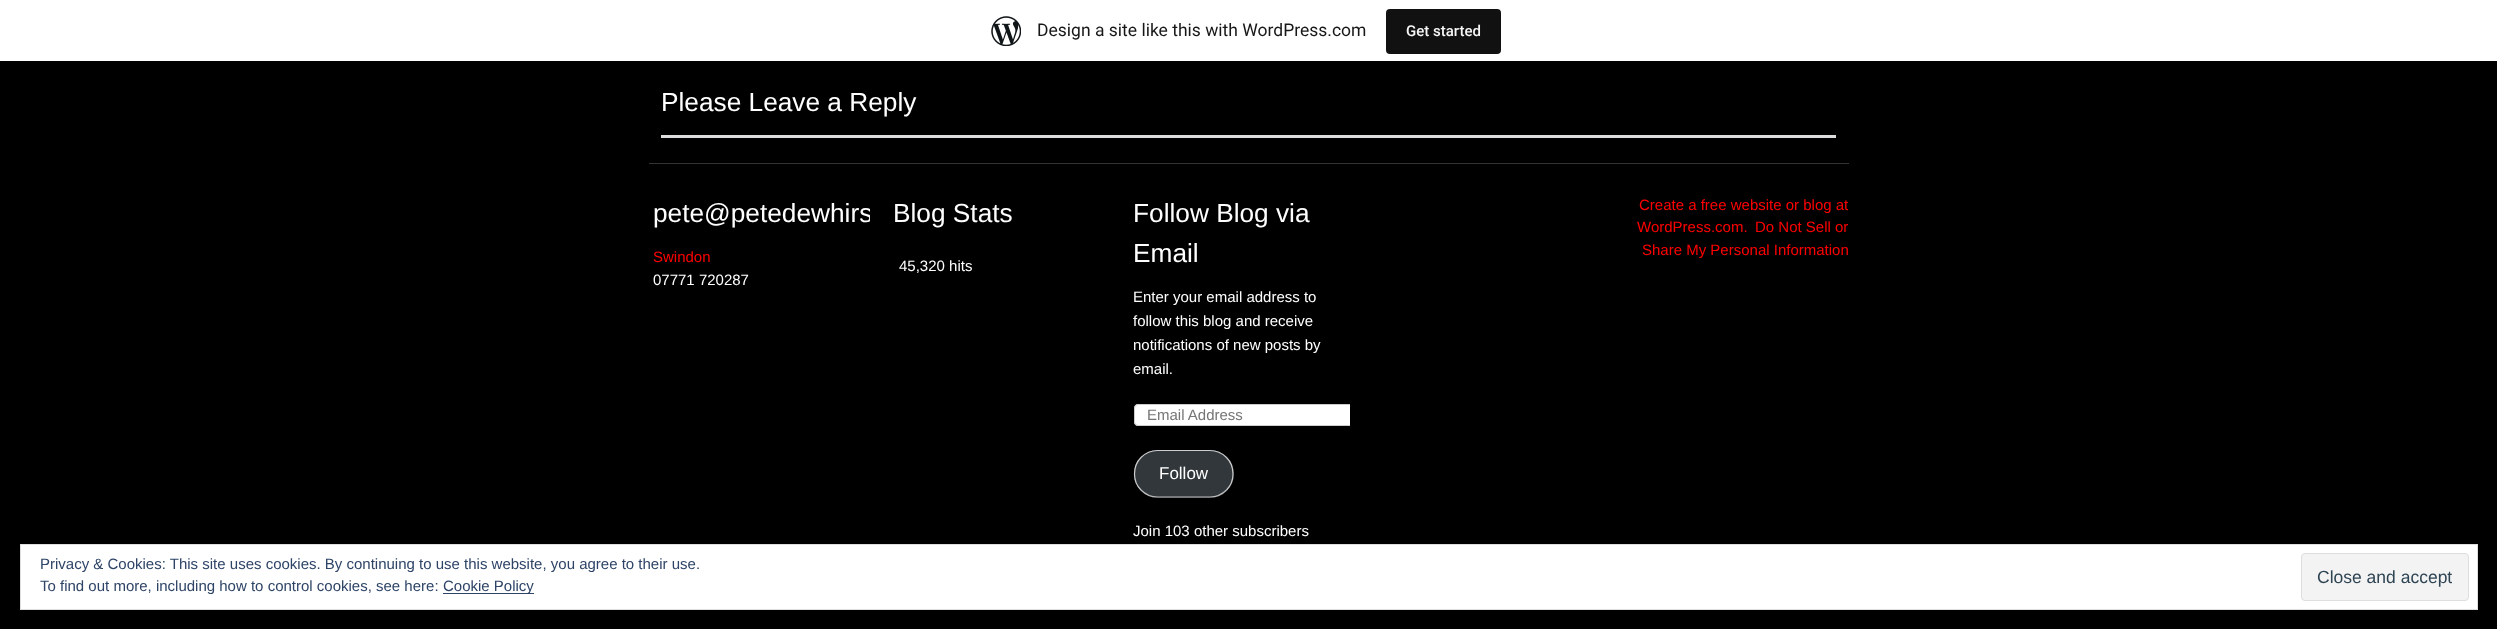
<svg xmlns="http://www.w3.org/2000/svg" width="2497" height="629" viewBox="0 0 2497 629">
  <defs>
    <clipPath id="clip1"><rect x="649" y="194" width="221" height="97"/></clipPath>
    <clipPath id="clip2"><rect x="1129" y="194" width="221" height="349"/></clipPath>
  </defs>
  <rect width="100%" height="100%" fill="#000000"/>
  <rect x="0" y="0" width="2497" height="61" fill="#ffffff"/>
  <image x="991" y="16" width="30" height="30" href="img1.png"/>
  <text x="1037" y="36" font-family="Roboto" font-size="17.5" fill="#171717">Design a site like this with WordPress.com</text>
  <rect x="1386" y="9" width="115" height="45" rx="4" fill="#111111"/>
  <text x="1406" y="36" font-family="Roboto" font-size="15" font-weight="500" fill="#f6f7f7">Get started</text>
  <text x="661" y="111" font-family="Liberation Sans" font-size="26.25" fill="#ffffff">Please Leave a Reply</text>
  <rect x="661" y="135" width="1175" height="3" fill="#dcdcde"/>
  <rect x="649" y="163" width="1200" height="1" fill="#333333"/>
  <g clip-path="url(#clip1)">
    <text x="653" y="222" font-family="Liberation Sans" font-size="26.25" fill="#ffffff">pete@petedewhirs</text>
  </g>
  <text x="653" y="262" font-family="Liberation Sans" font-size="15" fill="#ff0000">Swindon</text>
  <text x="653" y="285" font-family="Liberation Sans" font-size="15" fill="#ffffff">07771 720287</text>
  <text x="893" y="222" font-family="Liberation Sans" font-size="26.25" fill="#ffffff">Blog Stats</text>
  <text x="899" y="271" font-family="Liberation Sans" font-size="15" fill="#ffffff">45,320 hits</text>
  <text x="1133" y="222" font-family="Liberation Sans" font-size="26.25" fill="#ffffff">Follow Blog via</text>
  <text x="1133" y="262" font-family="Liberation Sans" font-size="26.25" fill="#ffffff">Email</text>
  <text x="1133" y="302" font-family="Liberation Sans" font-size="15" fill="#ffffff">Enter your email address to</text>
  <text x="1133" y="326" font-family="Liberation Sans" font-size="15" fill="#ffffff">follow this blog and receive</text>
  <text x="1133" y="350" font-family="Liberation Sans" font-size="15" fill="#ffffff">notifications of new posts by</text>
  <text x="1133" y="374" font-family="Liberation Sans" font-size="15" fill="#ffffff">email.</text>
  <path d="M1138 404H1350V426H1138C1136 426 1134 424 1134 422V408C1134 406 1136 404 1138 404Z" fill="#ffffff"/>
  <g clip-path="url(#clip2)">
    <rect x="1134.5" y="404.5" width="228" height="21" rx="3.5" fill="none" stroke="#cccccc"/>
  </g>
  <text x="1147" y="420" font-family="Liberation Sans" font-size="15" fill="#757575">Email Address</text>
  <rect x="1134" y="450" width="100" height="48" rx="24" fill="#32373c"/>
  <path d="M1226.5 490C1222 494.5 1216 497 1210 497H1157.5C1151.5 497 1145.5 494.5 1141 490" fill="none" stroke="#bbbbbb" stroke-width="1.2"/>
  <path d="M1141 490C1137 486 1134.5 480 1134.5 474C1134.5 467.5 1137 461.5 1141 457.5C1145.5 453 1151.5 450.5 1157.5 450.5H1210C1216 450.5 1222 453 1226.5 457.5C1230.5 461.5 1233 467.5 1233 474C1233 480 1230.5 486 1226.5 490" fill="none" stroke="#cccccc" stroke-width="1.2"/>
  <text x="1159" y="479" font-family="Liberation Sans" font-size="17" fill="#ffffff">Follow</text>
  <text x="1133" y="536" font-family="Liberation Sans" font-size="15" fill="#ffffff">Join 103 other subscribers</text>
  <text x="1639" y="210" font-family="Liberation Sans" font-size="15" fill="#ff0000">Create a free website or blog at</text>
  <text x="1637" y="232" font-family="Liberation Sans" font-size="15" fill="#ff0000">WordPress.com.</text>
  <text x="1755" y="232" font-family="Liberation Sans" font-size="15" fill="#ff0000">Do Not Sell or</text>
  <text x="1642" y="255" font-family="Liberation Sans" font-size="15" fill="#ff0000">Share My Personal Information</text>
  <rect x="20.5" y="544.5" width="2457" height="65" fill="#ffffff" stroke="#dedede"/>
  <text x="40" y="569" font-family="Liberation Sans" font-size="15" fill="#2e4467">Privacy &amp; Cookies: This site uses cookies. By continuing to use this website, you agree to their use.</text>
  <text x="40" y="591" font-family="Liberation Sans" font-size="15" fill="#2e4467">To find out more, including how to control cookies, see here:</text>
  <rect x="443" y="593" width="91" height="1" fill="#2e4467"/>
  <text x="443" y="591" font-family="Liberation Sans" font-size="15" fill="#2e4467">Cookie Policy</text>
  <rect x="2301.5" y="553.5" width="167" height="47" rx="3.5" fill="#f3f3f3" stroke="#dedede"/>
  <text x="2317" y="583" font-family="Liberation Sans" font-size="17.5" fill="#2e4453">Close and accept</text>
</svg>
